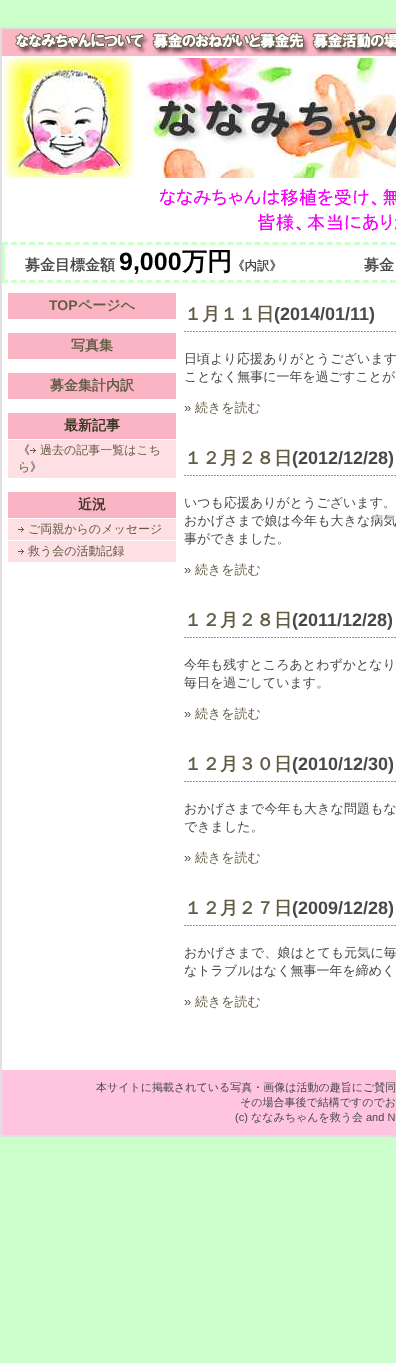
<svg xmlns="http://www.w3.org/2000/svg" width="396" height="1363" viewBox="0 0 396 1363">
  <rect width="100%" height="100%" fill="#ccffcc"/>
  <rect x="0" y="27" width="396" height="2" fill="#e0e0e0"/>
  <rect x="0" y="27" width="2" height="264" fill="#e0e0e0"/>
  <image x="2" y="29" width="147" height="27" href="img1.png"/>
  <image x="149" y="29" width="160" height="27" href="img2.png"/>
  <image x="309" y="29" width="87" height="27" href="img3.png"/>
  <rect x="2" y="56" width="394" height="1014" fill="#ffffff"/>
  <image x="3" y="58" width="393" height="120" href="img4.png"/>
  <image x="160" y="188" width="236" height="43" href="img5.png"/>
  <path d="M2 243.5H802" fill="none" stroke="#ccffcc" stroke-width="3" stroke-dasharray="6 3.02"/>
  <path d="M2 281.5H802" fill="none" stroke="#ccffcc" stroke-width="3" stroke-dasharray="6 3.02"/>
  <rect x="2" y="242" width="3" height="41" fill="#ccffcc"/>
  <text x="25" y="270" font-family="WenQuanYi Zen Hei" font-size="15" font-weight="bold" fill="#494949">募金目標金額</text>
  <text x="119" y="270" font-family="Liberation Sans" font-size="25" font-weight="bold" fill="#000000">9,000</text>
  <text x="182" y="270" font-family="WenQuanYi Zen Hei" font-size="25" font-weight="bold" fill="#000000">万円</text>
  <text x="232" y="270" font-family="WenQuanYi Zen Hei" font-size="12.5" font-weight="bold" fill="#494949">《内訳》</text>
  <text x="364" y="270" font-family="WenQuanYi Zen Hei" font-size="15" font-weight="bold" fill="#494949">募金</text>
  <rect x="0" y="291" width="2" height="779" fill="#e0e0e0"/>
  <rect x="8" y="293" width="168" height="26" fill="#fbb4c4"/>
  <text x="49" y="310" font-family="Liberation Sans" font-size="14" font-weight="bold" fill="#635d45">TOP</text>
  <text x="78" y="310" font-family="WenQuanYi Zen Hei" font-size="14" font-weight="bold" fill="#635d45">ページへ</text>
  <rect x="8" y="333" width="168" height="26" fill="#fbb4c4"/>
  <text x="71" y="350" font-family="WenQuanYi Zen Hei" font-size="14" font-weight="bold" fill="#635d45">写真集</text>
  <rect x="8" y="373" width="168" height="26" fill="#fbb4c4"/>
  <text x="50" y="390" font-family="WenQuanYi Zen Hei" font-size="14" font-weight="bold" fill="#635d45">募金集計内訳</text>
  <rect x="8" y="413" width="168" height="26" fill="#fbb4c4"/>
  <text x="64" y="430" font-family="WenQuanYi Zen Hei" font-size="14" font-weight="bold" fill="#3a3523">最新記事</text>
  <rect x="8" y="440" width="168" height="38" fill="#fddfe4"/>
  <text x="18" y="454" font-family="WenQuanYi Zen Hei" font-size="12" font-weight="500" fill="#21262a">《</text>
  <image x="30" y="448" width="6" height="5" href="img6.png"/>
  <text x="40" y="454" font-family="WenQuanYi Zen Hei" font-size="12" font-weight="500" fill="#635d45">過去の記事一覧はこち</text>
  <text x="18" y="471" font-family="WenQuanYi Zen Hei" font-size="12" font-weight="500" fill="#635d45">ら</text>
  <text x="30" y="471" font-family="WenQuanYi Zen Hei" font-size="12" font-weight="500" fill="#21262a">》</text>
  <rect x="8" y="492" width="168" height="26" fill="#fbb4c4"/>
  <text x="78" y="509" font-family="WenQuanYi Zen Hei" font-size="14" font-weight="bold" fill="#3a3523">近況</text>
  <rect x="8" y="519" width="168" height="21" fill="#fddfe4"/>
  <image x="18" y="527" width="6" height="5" href="img6.png"/>
  <text x="28" y="533" font-family="WenQuanYi Zen Hei" font-size="12" font-weight="500" fill="#635d45">ご両親からのメッセージ</text>
  <rect x="8" y="541" width="168" height="21" fill="#fddfe4"/>
  <image x="18" y="549" width="6" height="5" href="img6.png"/>
  <text x="28" y="555" font-family="WenQuanYi Zen Hei" font-size="12" font-weight="500" fill="#635d45">救う会の活動記録</text>
  <image x="184" y="331" width="212" height="1" href="img7.png"/>
  <text x="184" y="320" font-family="WenQuanYi Zen Hei" font-size="18" font-weight="bold" fill="#635d45">１月１１日</text>
  <text x="274" y="320" font-family="Liberation Sans" font-size="18" font-weight="bold" fill="#494949">(2014/01/11)</text>
  <text x="184" y="363" font-family="WenQuanYi Zen Hei" font-size="13" font-weight="500" letter-spacing="0.1" fill="#494949">日頃より応援ありがとうございます</text>
  <text x="184" y="381" font-family="WenQuanYi Zen Hei" font-size="13" font-weight="500" fill="#494949">ことなく無事に一年を過ごすことが</text>
  <text x="184" y="412" font-family="Liberation Sans" font-size="13" fill="#494949">»</text>
  <text x="195" y="412" font-family="WenQuanYi Zen Hei" font-size="13" font-weight="500" fill="#635d45">続きを読む</text>
  <image x="184" y="475" width="212" height="1" href="img7.png"/>
  <text x="184" y="464" font-family="WenQuanYi Zen Hei" font-size="18" font-weight="bold" fill="#635d45">１２月２８日</text>
  <text x="292" y="464" font-family="Liberation Sans" font-size="18" font-weight="bold" fill="#494949">(2012/12/28)</text>
  <text x="184" y="507" font-family="WenQuanYi Zen Hei" font-size="13" font-weight="500" fill="#494949">いつも応援ありがとうございます。</text>
  <text x="184" y="525" font-family="WenQuanYi Zen Hei" font-size="13" font-weight="500" letter-spacing="0.1" fill="#494949">おかげさまで娘は今年も大きな病気</text>
  <text x="184" y="543" font-family="WenQuanYi Zen Hei" font-size="13" font-weight="500" fill="#494949">事ができました。</text>
  <text x="184" y="574" font-family="Liberation Sans" font-size="13" fill="#494949">»</text>
  <text x="195" y="574" font-family="WenQuanYi Zen Hei" font-size="13" font-weight="500" fill="#635d45">続きを読む</text>
  <image x="184" y="637" width="212" height="1" href="img7.png"/>
  <text x="184" y="626" font-family="WenQuanYi Zen Hei" font-size="18" font-weight="bold" fill="#635d45">１２月２８日</text>
  <text x="292" y="626" font-family="Liberation Sans" font-size="18" font-weight="bold" fill="#494949">(2011/12/28)</text>
  <text x="184" y="669" font-family="WenQuanYi Zen Hei" font-size="13" font-weight="500" fill="#494949">今年も残すところあとわずかとなり</text>
  <text x="184" y="687" font-family="WenQuanYi Zen Hei" font-size="13" font-weight="500" fill="#494949">毎日を過ごしています。</text>
  <text x="184" y="718" font-family="Liberation Sans" font-size="13" fill="#494949">»</text>
  <text x="195" y="718" font-family="WenQuanYi Zen Hei" font-size="13" font-weight="500" fill="#635d45">続きを読む</text>
  <image x="184" y="781" width="212" height="1" href="img7.png"/>
  <text x="184" y="770" font-family="WenQuanYi Zen Hei" font-size="18" font-weight="bold" fill="#635d45">１２月３０日</text>
  <text x="292" y="770" font-family="Liberation Sans" font-size="18" font-weight="bold" fill="#494949">(2010/12/30)</text>
  <text x="184" y="813" font-family="WenQuanYi Zen Hei" font-size="13" font-weight="500" letter-spacing="0.1" fill="#494949">おかげさまで今年も大きな問題もな</text>
  <text x="184" y="831" font-family="WenQuanYi Zen Hei" font-size="13" font-weight="500" fill="#494949">できました。</text>
  <text x="184" y="862" font-family="Liberation Sans" font-size="13" fill="#494949">»</text>
  <text x="195" y="862" font-family="WenQuanYi Zen Hei" font-size="13" font-weight="500" fill="#635d45">続きを読む</text>
  <image x="184" y="925" width="212" height="1" href="img7.png"/>
  <text x="184" y="914" font-family="WenQuanYi Zen Hei" font-size="18" font-weight="bold" fill="#635d45">１２月２７日</text>
  <text x="292" y="914" font-family="Liberation Sans" font-size="18" font-weight="bold" fill="#494949">(2009/12/28)</text>
  <text x="184" y="957" font-family="WenQuanYi Zen Hei" font-size="13" font-weight="500" letter-spacing="0.1" fill="#494949">おかげさまで、娘はとても元気に毎</text>
  <text x="184" y="975" font-family="WenQuanYi Zen Hei" font-size="13" font-weight="500" fill="#494949">なトラブルはなく無事一年を締めく</text>
  <text x="184" y="1006" font-family="Liberation Sans" font-size="13" fill="#494949">»</text>
  <text x="195" y="1006" font-family="WenQuanYi Zen Hei" font-size="13" font-weight="500" fill="#635d45">続きを読む</text>
  <rect x="2" y="1070" width="394" height="65" fill="#ffc5e0"/>
  <rect x="0" y="1135" width="396" height="2" fill="#e0e0e0"/>
  <rect x="0" y="1070" width="2" height="67" fill="#e0e0e0"/>
  <text x="96" y="1091" font-family="WenQuanYi Zen Hei" font-size="11" font-weight="500" fill="#494949">本サイトに掲載されている写真・画像は活動の趣旨にご賛同</text>
  <text x="240" y="1106" font-family="WenQuanYi Zen Hei" font-size="11" font-weight="500" fill="#494949">その場合事後で結構ですのでお</text>
  <text x="235" y="1121" font-family="Liberation Sans" font-size="11" fill="#494949">(c)</text>
  <text x="251" y="1121" font-family="WenQuanYi Zen Hei" font-size="11" font-weight="500" fill="#494949">ななみちゃんを救う会</text>
  <text x="366" y="1121" font-family="Liberation Sans" font-size="11" fill="#494949">and N</text>
</svg>
